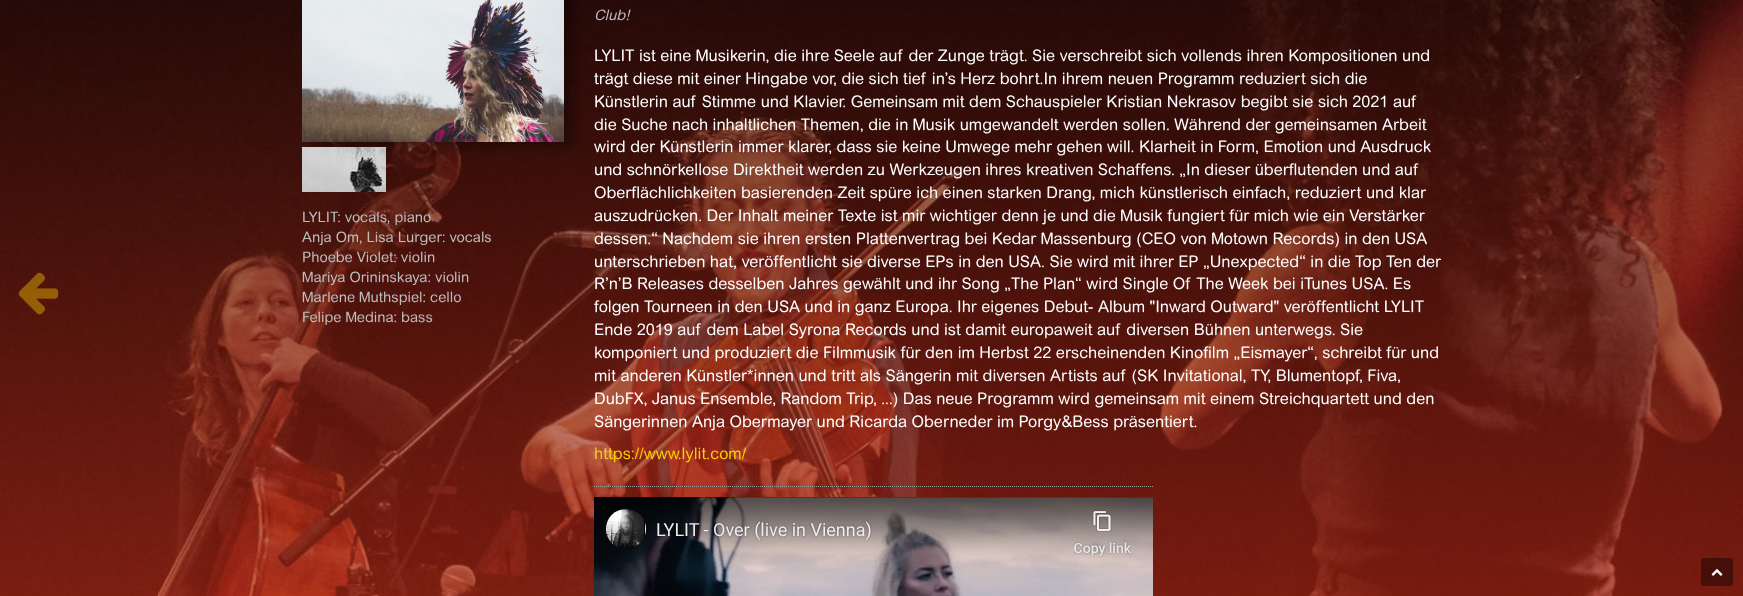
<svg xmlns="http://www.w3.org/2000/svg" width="1743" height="596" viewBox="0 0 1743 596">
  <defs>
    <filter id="blur1" x="-50%" y="-200%" width="200%" height="500%"><feGaussianBlur stdDeviation="6"/></filter>
  </defs>
  <rect width="100%" height="100%" fill="#ffffff"/>
  <image x="0" y="0" width="1743" height="596" href="img1.png"/>
  <image x="18" y="272" width="41" height="43" href="img2.png"/>
  <rect x="312" y="-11" width="262" height="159" fill="#000000" fill-opacity="0.35" filter="url(#blur1)"/>
  <image x="302" y="0" width="262" height="142" href="img3.png"/>
  <image x="302" y="147" width="84" height="45" href="img4.png"/>
  <text x="302" y="222" font-family="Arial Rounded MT" font-size="14.4" fill="#bdbdbd">LYLIT: vocals, piano</text>
  <text x="302" y="242" font-family="Arial Rounded MT" font-size="14.4" fill="#bdbdbd">Anja Om, Lisa Lurger: vocals</text>
  <text x="302" y="262" font-family="Arial Rounded MT" font-size="14.4" fill="#bdbdbd">Phoebe Violet: violin</text>
  <text x="302" y="282" font-family="Arial Rounded MT" font-size="14.4" fill="#bdbdbd">Mariya Orininskaya: violin</text>
  <text x="302" y="302" font-family="Arial Rounded MT" font-size="14.4" fill="#bdbdbd">Marlene Muthspiel: cello</text>
  <text x="302" y="322" font-family="Arial Rounded MT" font-size="14.4" fill="#bdbdbd">Felipe Medina: bass</text>
  <text x="594" y="20" font-family="Arial Rounded MT" font-size="14.4" font-style="italic" fill="#bdbdbd">Club!</text>
  <text x="594" y="61" font-family="Arial Rounded MT" font-size="16" fill="#ffffff">LYLIT ist eine Musikerin, die ihre Seele auf der Zunge trägt. Sie verschreibt sich vollends ihren Kompositionen und</text>
  <text x="594" y="84" font-family="Arial Rounded MT" font-size="16" fill="#ffffff">trägt diese mit einer Hingabe vor, die sich tief in’s Herz bohrt.In ihrem neuen Programm reduziert sich die</text>
  <text x="594" y="107" font-family="Arial Rounded MT" font-size="16" fill="#ffffff">Künstlerin auf Stimme und Klavier. Gemeinsam mit dem Schauspieler Kristian Nekrasov begibt sie sich 2021 auf</text>
  <text x="594" y="130" font-family="Arial Rounded MT" font-size="16" fill="#ffffff">die Suche nach inhaltlichen Themen, die in Musik umgewandelt werden sollen. Während der gemeinsamen Arbeit</text>
  <text x="594" y="152" font-family="Arial Rounded MT" font-size="16" fill="#ffffff">wird der Künstlerin immer klarer, dass sie keine Umwege mehr gehen will. Klarheit in Form, Emotion und Ausdruck</text>
  <text x="594" y="175" font-family="Arial Rounded MT" font-size="16" fill="#ffffff">und schnörkellose Direktheit werden zu Werkzeugen ihres kreativen Schaffens. „In dieser überflutenden und auf</text>
  <text x="594" y="198" font-family="Arial Rounded MT" font-size="16" fill="#ffffff">Oberflächlichkeiten basierenden Zeit spüre ich einen starken Drang, mich künstlerisch einfach, reduziert und klar</text>
  <text x="594" y="221" font-family="Arial Rounded MT" font-size="16" fill="#ffffff">auszudrücken. Der Inhalt meiner Texte ist mir wichtiger denn je und die Musik fungiert für mich wie ein Verstärker</text>
  <text x="594" y="244" font-family="Arial Rounded MT" font-size="16" fill="#ffffff">dessen.“ Nachdem sie ihren ersten Plattenvertrag bei Kedar Massenburg (CEO von Motown Records) in den USA</text>
  <text x="594" y="267" font-family="Arial Rounded MT" font-size="16" fill="#ffffff">unterschrieben hat, veröffentlicht sie diverse EPs in den USA. Sie wird mit ihrer EP „Unexpected“ in die Top Ten der</text>
  <text x="594" y="289" font-family="Arial Rounded MT" font-size="16" fill="#ffffff">R’n’B Releases desselben Jahres gewählt und ihr Song „The Plan“ wird Single Of The Week bei iTunes USA. Es</text>
  <text x="594" y="312" font-family="Arial Rounded MT" font-size="16" fill="#ffffff">folgen Tourneen in den USA und in ganz Europa. Ihr eigenes Debut- Album "Inward Outward" veröffentlicht LYLIT</text>
  <text x="594" y="335" font-family="Arial Rounded MT" font-size="16" fill="#ffffff">Ende 2019 auf dem Label Syrona Records und ist damit europaweit auf diversen Bühnen unterwegs. Sie</text>
  <text x="594" y="358" font-family="Arial Rounded MT" font-size="16" fill="#ffffff">komponiert und produziert die Filmmusik für den im Herbst 22 erscheinenden Kinofilm „Eismayer“, schreibt für und</text>
  <text x="594" y="381" font-family="Arial Rounded MT" font-size="16" fill="#ffffff">mit anderen Künstler*innen und tritt als Sängerin mit diversen Artists auf (SK Invitational, TY, Blumentopf, Fiva,</text>
  <text x="594" y="404" font-family="Arial Rounded MT" font-size="16" fill="#ffffff">DubFX, Janus Ensemble, Random Trip, ...) Das neue Programm wird gemeinsam mit einem Streichquartett und den</text>
  <text x="594" y="427" font-family="Arial Rounded MT" font-size="16" fill="#ffffff">Sängerinnen Anja Obermayer und Ricarda Oberneder im Porgy&amp;Bess präsentiert.</text>
  <text x="594" y="459" font-family="Arial Rounded MT" font-size="16" fill="#ffcc00">https://www.lylit.com/</text>
  <path d="M594 486.5H1153" fill="none" stroke="#9d9d9d" stroke-dasharray="1 1"/>
  <image x="594" y="497" width="559" height="99" href="img5.png"/>
  <rect x="1701" y="558" width="32" height="28" rx="3" fill="#000000" fill-opacity="0.4"/>
  <image x="1711" y="569" width="12" height="7" href="img6.png"/>
</svg>
